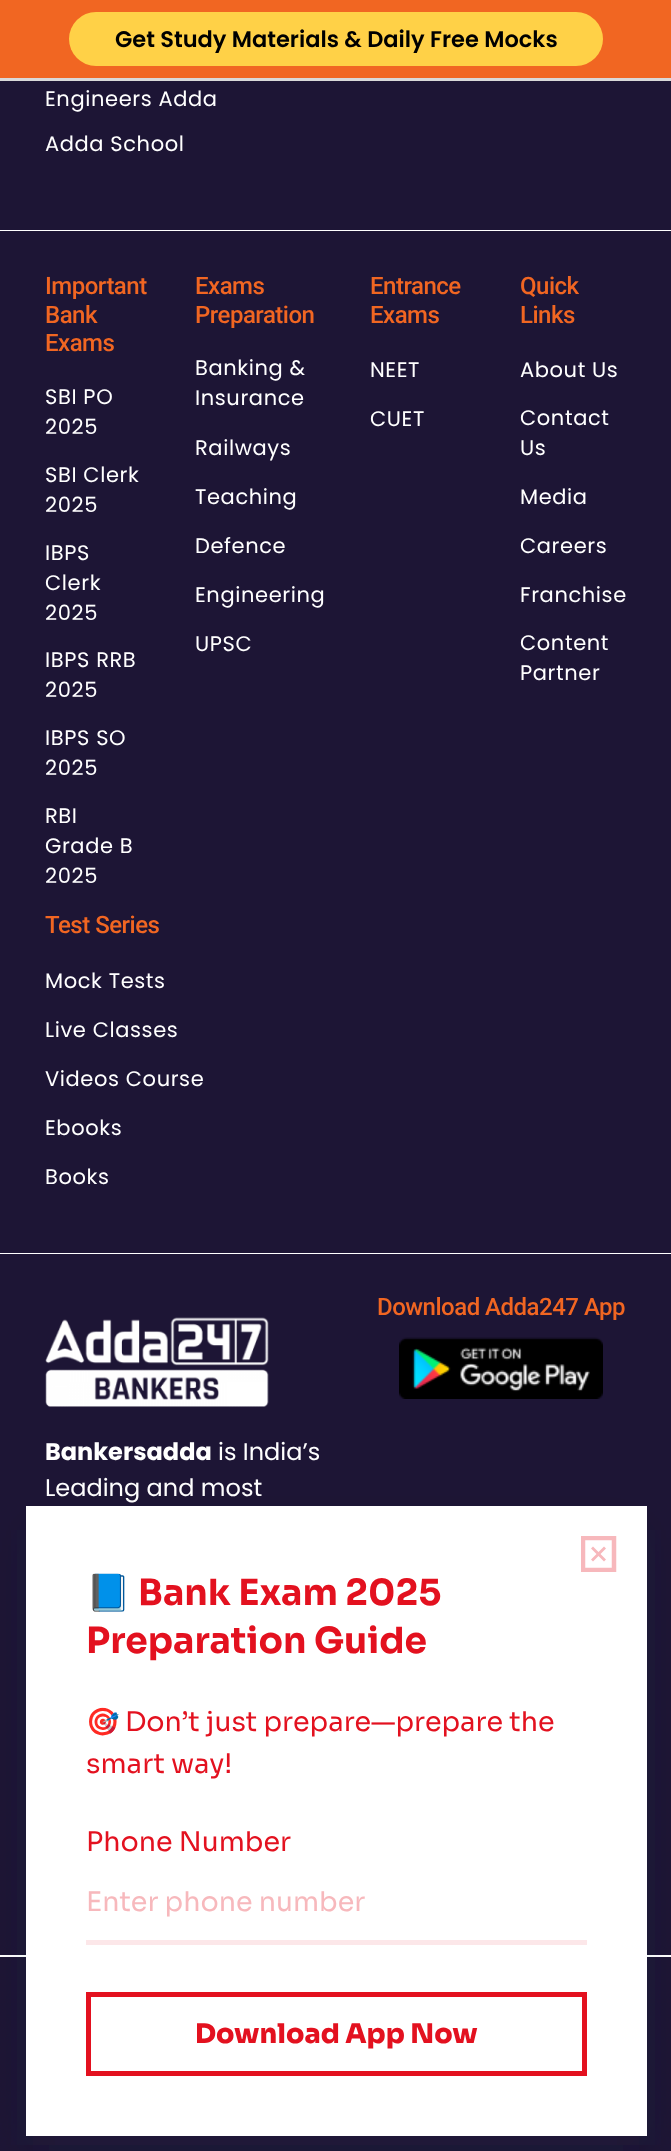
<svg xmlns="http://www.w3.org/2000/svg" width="671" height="2151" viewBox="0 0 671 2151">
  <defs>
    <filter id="blur1" x="-50%" y="-200%" width="200%" height="500%"><feGaussianBlur stdDeviation="24"/></filter>
    <clipPath id="clip1"><rect x="581" y="1536" width="36" height="36"/></clipPath>
  </defs>
  <rect width="100%" height="100%" fill="#1d1535"/>
  <rect x="0" y="0" width="671" height="78" fill="#f16622"/>
  <rect x="0" y="78" width="671" height="3" fill="#d9d9d9"/>
  <rect x="69" y="12" width="534" height="54" rx="27" fill="#ffd147"/>
  <text x="115" y="47" font-family="Poppins" font-size="22.5" font-weight="600" fill="#000000">Get Study Materials &amp; Daily Free Mocks</text>
  <rect x="0" y="230" width="671" height="1" fill="#ffffff"/>
  <text x="45" y="106" font-family="Poppins" font-size="21" letter-spacing="0.6" fill="#ffffff">Engineers Adda</text>
  <text x="45" y="151" font-family="Poppins" font-size="21" letter-spacing="0.6" fill="#ffffff">Adda School</text>
  <rect x="0" y="1253" width="671" height="1" fill="#ffffff"/>
  <text x="45" y="294" font-family="Roboto" font-size="24" font-weight="500" letter-spacing="-0.5" fill="#f16622">Important</text>
  <text x="45" y="323" font-family="Roboto" font-size="24" font-weight="500" letter-spacing="-0.5" fill="#f16622">Bank</text>
  <text x="45" y="351" font-family="Roboto" font-size="24" font-weight="500" letter-spacing="-0.5" fill="#f16622">Exams</text>
  <text x="45" y="404" font-family="Poppins" font-size="21" letter-spacing="0.6" fill="#ffffff">SBI PO</text>
  <text x="45" y="434" font-family="Poppins" font-size="21" letter-spacing="0.6" fill="#ffffff">2025</text>
  <text x="45" y="482" font-family="Poppins" font-size="21" letter-spacing="0.6" fill="#ffffff">SBI Clerk</text>
  <text x="45" y="512" font-family="Poppins" font-size="21" letter-spacing="0.6" fill="#ffffff">2025</text>
  <text x="45" y="560" font-family="Poppins" font-size="21" letter-spacing="0.6" fill="#ffffff">IBPS</text>
  <text x="45" y="590" font-family="Poppins" font-size="21" letter-spacing="0.6" fill="#ffffff">Clerk</text>
  <text x="45" y="620" font-family="Poppins" font-size="21" letter-spacing="0.6" fill="#ffffff">2025</text>
  <text x="45" y="667" font-family="Poppins" font-size="21" letter-spacing="0.6" fill="#ffffff">IBPS RRB</text>
  <text x="45" y="697" font-family="Poppins" font-size="21" letter-spacing="0.6" fill="#ffffff">2025</text>
  <text x="45" y="745" font-family="Poppins" font-size="21" letter-spacing="0.6" fill="#ffffff">IBPS SO</text>
  <text x="45" y="775" font-family="Poppins" font-size="21" letter-spacing="0.6" fill="#ffffff">2025</text>
  <text x="45" y="823" font-family="Poppins" font-size="21" letter-spacing="0.6" fill="#ffffff">RBI</text>
  <text x="45" y="853" font-family="Poppins" font-size="21" letter-spacing="0.6" fill="#ffffff">Grade B</text>
  <text x="45" y="883" font-family="Poppins" font-size="21" letter-spacing="0.6" fill="#ffffff">2025</text>
  <text x="195" y="294" font-family="Roboto" font-size="24" font-weight="500" letter-spacing="-0.5" fill="#f16622">Exams</text>
  <text x="195" y="323" font-family="Roboto" font-size="24" font-weight="500" letter-spacing="-0.5" fill="#f16622">Preparation</text>
  <text x="195" y="375" font-family="Poppins" font-size="21" letter-spacing="0.6" fill="#ffffff">Banking &amp;</text>
  <text x="195" y="405" font-family="Poppins" font-size="21" letter-spacing="0.6" fill="#ffffff">Insurance</text>
  <text x="195" y="455" font-family="Poppins" font-size="21" letter-spacing="0.6" fill="#ffffff">Railways</text>
  <text x="195" y="504" font-family="Poppins" font-size="21" letter-spacing="0.6" fill="#ffffff">Teaching</text>
  <text x="195" y="553" font-family="Poppins" font-size="21" letter-spacing="0.6" fill="#ffffff">Defence</text>
  <text x="195" y="602" font-family="Poppins" font-size="21" letter-spacing="0.6" fill="#ffffff">Engineering</text>
  <text x="195" y="651" font-family="Poppins" font-size="21" letter-spacing="0.6" fill="#ffffff">UPSC</text>
  <text x="370" y="294" font-family="Roboto" font-size="24" font-weight="500" letter-spacing="-0.5" fill="#f16622">Entrance</text>
  <text x="370" y="323" font-family="Roboto" font-size="24" font-weight="500" letter-spacing="-0.5" fill="#f16622">Exams</text>
  <text x="370" y="377" font-family="Poppins" font-size="21" letter-spacing="0.6" fill="#ffffff">NEET</text>
  <text x="370" y="426" font-family="Poppins" font-size="21" letter-spacing="0.6" fill="#ffffff">CUET</text>
  <text x="520" y="294" font-family="Roboto" font-size="24" font-weight="500" letter-spacing="-0.5" fill="#f16622">Quick</text>
  <text x="520" y="323" font-family="Roboto" font-size="24" font-weight="500" letter-spacing="-0.5" fill="#f16622">Links</text>
  <text x="520" y="377" font-family="Poppins" font-size="21" letter-spacing="0.6" fill="#ffffff">About Us</text>
  <text x="520" y="425" font-family="Poppins" font-size="21" letter-spacing="0.6" fill="#ffffff">Contact</text>
  <text x="520" y="455" font-family="Poppins" font-size="21" letter-spacing="0.6" fill="#ffffff">Us</text>
  <text x="520" y="504" font-family="Poppins" font-size="21" letter-spacing="0.6" fill="#ffffff">Media</text>
  <text x="520" y="553" font-family="Poppins" font-size="21" letter-spacing="0.6" fill="#ffffff">Careers</text>
  <text x="520" y="602" font-family="Poppins" font-size="21" letter-spacing="0.6" fill="#ffffff">Franchise</text>
  <text x="520" y="650" font-family="Poppins" font-size="21" letter-spacing="0.6" fill="#ffffff">Content</text>
  <text x="520" y="680" font-family="Poppins" font-size="21" letter-spacing="0.6" fill="#ffffff">Partner</text>
  <text x="45" y="933" font-family="Roboto" font-size="24" font-weight="500" letter-spacing="-0.5" fill="#f16622">Test Series</text>
  <text x="45" y="988" font-family="Poppins" font-size="21" letter-spacing="0.6" fill="#ffffff">Mock Tests</text>
  <text x="45" y="1037" font-family="Poppins" font-size="21" letter-spacing="0.6" fill="#ffffff">Live Classes</text>
  <text x="45" y="1086" font-family="Poppins" font-size="21" letter-spacing="0.6" fill="#ffffff">Videos Course</text>
  <text x="45" y="1135" font-family="Poppins" font-size="21" letter-spacing="0.6" fill="#ffffff">Ebooks</text>
  <text x="45" y="1184" font-family="Poppins" font-size="21" letter-spacing="0.6" fill="#ffffff">Books</text>
  <text x="377" y="1315" font-family="Roboto" font-size="24" font-weight="500" letter-spacing="-0.5" fill="#f16622">Download Adda247 App</text>
  <image x="399" y="1337" width="204" height="62" href="img1.png"/>
  <image x="45" y="1317" width="224" height="90" href="img2.png"/>
  <text x="45" y="1460" font-family="Poppins" font-size="24" font-weight="bold" fill="#ffffff">Bankersadda</text>
  <text x="218" y="1460" font-family="Poppins" font-size="24" fill="#ffffff">is India’s</text>
  <text x="45" y="1496" font-family="Poppins" font-size="24" fill="#ffffff">Leading and most</text>
  <rect x="0" y="1955" width="671" height="2" fill="#ffffff"/>
  <rect x="33" y="1530" width="606" height="615" fill="#363d4d" fill-opacity="0.15" filter="url(#blur1)"/>
  <rect x="26" y="1506" width="621" height="630" fill="#ffffff"/>
  <g clip-path="url(#clip1)">
    <path d="M614 1538V1570H583V1538Z" fill="none" stroke="#f7b8bc" stroke-width="4.5"/>
  </g>
  <path d="M606 1548.5L604 1546.5L598.5 1552L593 1546.5L591 1548.5L596.5 1554L591 1559.5L593 1561.5L598.5 1556L604 1561.5L606 1559.5L600.5 1554Z" fill="#f7b8bc"/>
  <text x="86" y="1605" font-family="Noto Color Emoji" font-size="36" font-weight="bold" fill="#e3111f">📘</text>
  <text x="138" y="1605" font-family="Sora" font-size="36" font-weight="bold" fill="#e3111f">Bank Exam 2025</text>
  <text x="86" y="1653" font-family="Sora" font-size="36" font-weight="bold" fill="#e3111f">Preparation Guide</text>
  <text x="86" y="1731" font-family="Noto Color Emoji" font-size="27" fill="#e3111f">🎯</text>
  <text x="125" y="1731" font-family="Sora" font-size="27" fill="#e3111f">Don’t just prepare—prepare the</text>
  <text x="86" y="1773" font-family="Sora" font-size="27" fill="#e3111f">smart way!</text>
  <text x="86" y="1851" font-family="Sora" font-size="27" fill="#e3111f">Phone Number</text>
  <rect x="86" y="1940" width="501" height="5" fill="#fce7e9"/>
  <text x="86" y="1911" font-family="Sora" font-size="27" fill="#f7b8bc">Enter phone number</text>
  <rect x="88.5" y="1994.5" width="496" height="79" fill="none" stroke="#e3111f" stroke-width="5"/>
  <text x="195" y="2043" font-family="Sora" font-size="27" font-weight="800" fill="#e3111f">Download App Now</text>
</svg>
